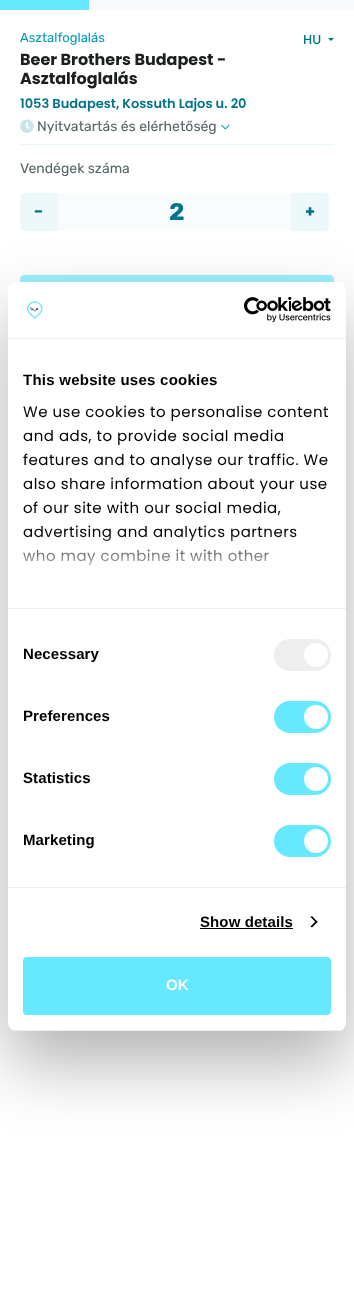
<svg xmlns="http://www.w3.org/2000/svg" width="354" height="1312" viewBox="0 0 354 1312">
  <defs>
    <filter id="blur1" x="-50%" y="-200%" width="200%" height="500%"><feGaussianBlur stdDeviation="34"/></filter>
    <linearGradient id="g1" gradientUnits="userSpaceOnUse" x1="171" y1="608" x2="171" y2="533"><stop offset="0" stop-color="#ffffff"/><stop offset="0.5" stop-color="#ffffff" stop-opacity="0.8"/><stop offset="1" stop-color="#ffffff" stop-opacity="0"/></linearGradient>
    <clipPath id="clip1"><rect x="8" y="282" width="338" height="749" rx="8"/></clipPath>
  </defs>
  <rect width="100%" height="100%" fill="#ffffff"/>
  <rect x="58" y="193" width="233" height="38" fill="#f8fcfd"/>
  <rect x="89" y="0" width="265" height="10" fill="#f7fbfc"/>
  <rect x="0" y="0" width="89" height="10" fill="#66e8fe"/>
  <text x="20" y="42" font-family="Rubik" font-size="13" fill="#009ab5">Asztalfoglalás</text>
  <text x="303" y="44" font-family="Poppins" font-size="13" font-weight="500" fill="#007488">HU</text>
  <path d="M328 38H334L331 41Z" fill="#007488"/>
  <text x="20" y="65" font-family="Poppins" font-size="16" font-weight="bold" fill="#1c1f1f">Beer Brothers Budapest -</text>
  <text x="20" y="84" font-family="Poppins" font-size="16" font-weight="bold" fill="#1c1f1f">Asztalfoglalás</text>
  <text x="20" y="108" font-family="Poppins" font-size="13" font-weight="600" fill="#007488">1053 Budapest, Kossuth Lajos u. 20</text>
  <image x="20" y="119" width="14" height="14" href="img1.png"/>
  <text x="37" y="131" font-family="Rubik" font-size="14" fill="#566567">Nyitvatartás és elérhetőség</text>
  <image x="221" y="124" width="9" height="6" href="img2.png"/>
  <rect x="20" y="144" width="314" height="1" fill="#e6f5f8"/>
  <text x="20" y="173" font-family="Rubik" font-size="14" fill="#566567">Vendégek száma</text>
  <path d="M24 193H58V231H24C22 231 20 229 20 227V197C20 195 22 193 24 193Z" fill="#edf8fa"/>
  <text x="34" y="217" font-family="Poppins" font-size="16" font-weight="bold" fill="#007488">-</text>
  <text x="169" y="220" font-family="Rubik" font-size="24" font-weight="bold" fill="#007488">2</text>
  <path d="M291 193H325C327 193 329 195 329 197V227C329 229 327 231 325 231H291Z" fill="#edf8fa"/>
  <text x="305" y="217" font-family="Poppins" font-size="16" font-weight="bold" fill="#007488">+</text>
  <rect x="20.5" y="275.5" width="313" height="55" rx="3.5" fill="#9cf0fe" stroke="#9cf0fe"/>
  <rect x="8" y="314" width="338" height="749" rx="8" fill="#000000" fill-opacity="0.3" filter="url(#blur1)"/>
  <rect x="8" y="282" width="338" height="749" rx="8" fill="#ffffff"/>
  <rect x="8" y="338" width="338" height="1" fill="#eeeeee"/>
  <image x="27" y="301" width="16" height="18" href="img3.png"/>
  <image x="244" y="297" width="87" height="26" href="img4.png"/>
  <rect x="8" y="608" width="338" height="1" fill="#eeeeee"/>
  <text x="23" y="385" font-family="Liberation Sans" font-size="15" font-weight="bold" letter-spacing="0.25" fill="#000000">This website uses cookies</text>
  <text x="23" y="417" font-family="Poppins" font-size="15" letter-spacing="0.5" fill="#000000">We use cookies to personalise content</text>
  <text x="23" y="441" font-family="Poppins" font-size="15" letter-spacing="0.5" fill="#000000">and ads, to provide social media</text>
  <text x="23" y="465" font-family="Poppins" font-size="15" letter-spacing="0.5" fill="#000000">features and to analyse our traffic. We</text>
  <text x="23" y="489" font-family="Poppins" font-size="15" letter-spacing="0.5" fill="#000000">also share information about your use</text>
  <text x="23" y="513" font-family="Poppins" font-size="15" letter-spacing="0.5" fill="#000000">of our site with our social media,</text>
  <text x="23" y="537" font-family="Poppins" font-size="15" letter-spacing="0.5" fill="#000000">advertising and analytics partners</text>
  <text x="23" y="561" font-family="Poppins" font-size="15" letter-spacing="0.5" fill="#000000">who may combine it with other</text>
  <rect x="23" y="534" width="274" height="31" fill="url(#g1)"/>
  <rect x="8" y="887" width="338" height="1" fill="#eeeeee"/>
  <text x="23" y="659" font-family="Liberation Sans" font-size="15" font-weight="bold" letter-spacing="0.1" fill="#000000">Necessary</text>
  <rect x="274" y="639" width="57" height="32" rx="16" fill="#eeeeee"/>
  <circle cx="316" cy="655" r="12" fill="#ffffff"/>
  <text x="23" y="721" font-family="Liberation Sans" font-size="15" font-weight="bold" letter-spacing="0.1" fill="#000000">Preferences</text>
  <rect x="274" y="701" width="57" height="32" rx="16" fill="#66e8fe"/>
  <circle cx="316" cy="717" r="12" fill="#ffffff"/>
  <text x="23" y="783" font-family="Liberation Sans" font-size="15" font-weight="bold" letter-spacing="0.1" fill="#000000">Statistics</text>
  <rect x="274" y="763" width="57" height="32" rx="16" fill="#66e8fe"/>
  <circle cx="316" cy="779" r="12" fill="#ffffff"/>
  <text x="23" y="845" font-family="Liberation Sans" font-size="15" font-weight="bold" letter-spacing="0.1" fill="#000000">Marketing</text>
  <rect x="274" y="825" width="57" height="32" rx="16" fill="#66e8fe"/>
  <circle cx="316" cy="841" r="12" fill="#ffffff"/>
  <text x="200" y="927" font-family="Liberation Sans" font-size="15" font-weight="bold" letter-spacing="0.1" fill="#000000">Show details</text>
  <rect x="200" y="928" width="93" height="1" fill="#000000"/>
  <path d="M312 916L317.5 922L316.5 923L310.5 917Z" fill="#000000"/>
  <path d="M316.5 920.5L317.5 922L312 927.5L310.5 926.5Z" fill="#000000"/>
  <g clip-path="url(#clip1)">
    <rect x="8" y="1030" width="338" height="1" fill="#eeeeee"/>
  </g>
  <rect x="24" y="958" width="306" height="56" rx="3" fill="#66e8fe" stroke="#66e8fe" stroke-width="2"/>
  <text x="166" y="990" font-family="Liberation Sans" font-size="15" font-weight="bold" fill="#ffffff">OK</text>
</svg>
